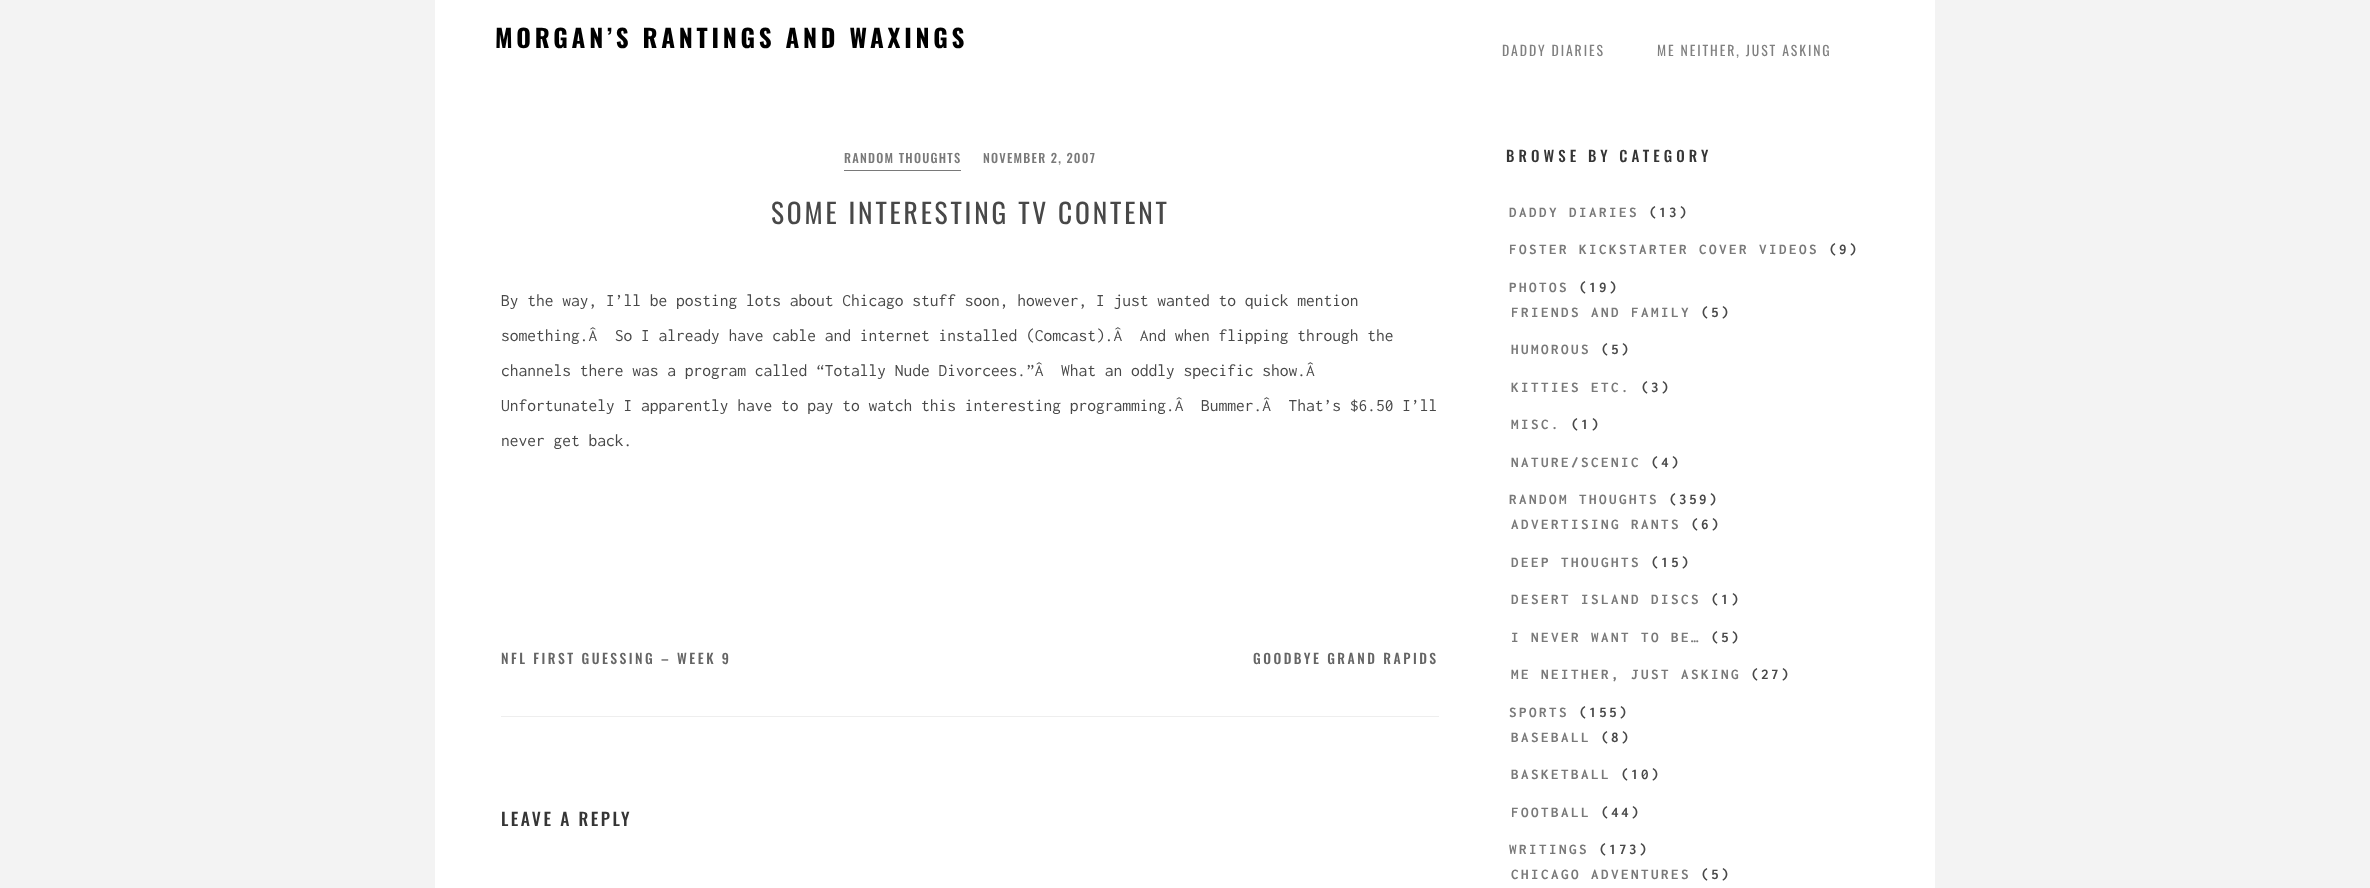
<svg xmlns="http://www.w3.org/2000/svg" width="2370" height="888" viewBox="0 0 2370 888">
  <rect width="100%" height="100%" fill="#f3f3f3"/>
  <rect x="435" y="0" width="1500" height="888" fill="#ffffff"/>
  <text x="495" y="48" font-family="Oswald" font-size="25" font-weight="bold" letter-spacing="3.75" fill="#000000">MORGAN’S RANTINGS AND WAXINGS</text>
  <text x="1502" y="56" font-family="Oswald" font-size="13.75" letter-spacing="1.9" fill="#808080">DADDY DIARIES</text>
  <text x="1657" y="56" font-family="Oswald" font-size="13.75" letter-spacing="1.9" fill="#808080">ME NEITHER, JUST ASKING</text>
  <rect x="844" y="170" width="117" height="1" fill="#797979"/>
  <text x="844" y="163" font-family="Oswald" font-size="12.5" font-weight="500" letter-spacing="1.25" fill="#797979">RANDOM THOUGHTS</text>
  <text x="983" y="163" font-family="Oswald" font-size="12.5" font-weight="500" letter-spacing="1.25" fill="#797979">NOVEMBER 2, 2007</text>
  <text x="771" y="224" font-family="Oswald" font-size="27.5" letter-spacing="2.8" fill="#484848">SOME INTERESTING TV CONTENT</text>
  <text x="501" y="306" font-family="Inconsolata" font-size="17.5" fill="#484848">By the way, I’ll be posting lots about Chicago stuff soon, however, I just wanted to quick mention</text>
  <text x="501" y="341" font-family="Inconsolata" font-size="17.5" fill="#484848" xml:space="preserve">something.Â  So I already have cable and internet installed (Comcast).Â  And when flipping through the</text>
  <text x="501" y="376" font-family="Inconsolata" font-size="17.5" fill="#484848" xml:space="preserve">channels there was a program called “Totally Nude Divorcees.”Â  What an oddly specific show.Â</text>
  <text x="501" y="411" font-family="Inconsolata" font-size="17.5" fill="#484848" xml:space="preserve">Unfortunately I apparently have to pay to watch this interesting programming.Â  Bummer.Â  That’s $6.50 I’ll</text>
  <text x="501" y="446" font-family="Inconsolata" font-size="17.5" fill="#484848">never get back.</text>
  <rect x="501" y="716" width="938" height="1" fill="#eeeeee"/>
  <text x="501" y="664" font-family="Oswald" font-size="13.75" font-weight="500" letter-spacing="2.5" fill="#656565">NFL FIRST GUESSING – WEEK 9</text>
  <text x="1253" y="664" font-family="Oswald" font-size="13.75" font-weight="500" letter-spacing="2.5" fill="#656565">GOODBYE GRAND RAPIDS</text>
  <text x="501" y="826" font-family="Oswald" font-size="17.5" font-weight="500" letter-spacing="2.5" fill="#353535">LEAVE A REPLY</text>
  <text x="1506" y="162" font-family="Oswald" font-size="15" font-weight="500" letter-spacing="4.1" fill="#353535">BROWSE BY CATEGORY</text>
  <text x="1509" y="217" font-family="Inconsolata" font-size="15" font-weight="bold" letter-spacing="2.5" fill="#797979">DADDY DIARIES</text>
  <text x="1649" y="217" font-family="Inconsolata" font-size="15" font-weight="bold" letter-spacing="2.5" fill="#484848">(13)</text>
  <text x="1509" y="254" font-family="Inconsolata" font-size="15" font-weight="bold" letter-spacing="2.5" fill="#797979">FOSTER KICKSTARTER COVER VIDEOS</text>
  <text x="1829" y="254" font-family="Inconsolata" font-size="15" font-weight="bold" letter-spacing="2.5" fill="#484848">(9)</text>
  <text x="1509" y="292" font-family="Inconsolata" font-size="15" font-weight="bold" letter-spacing="2.5" fill="#797979">PHOTOS</text>
  <text x="1579" y="292" font-family="Inconsolata" font-size="15" font-weight="bold" letter-spacing="2.5" fill="#484848">(19)</text>
  <text x="1511" y="317" font-family="Inconsolata" font-size="15" font-weight="bold" letter-spacing="2.5" fill="#797979">FRIENDS AND FAMILY</text>
  <text x="1701" y="317" font-family="Inconsolata" font-size="15" font-weight="bold" letter-spacing="2.5" fill="#484848">(5)</text>
  <text x="1511" y="354" font-family="Inconsolata" font-size="15" font-weight="bold" letter-spacing="2.5" fill="#797979">HUMOROUS</text>
  <text x="1601" y="354" font-family="Inconsolata" font-size="15" font-weight="bold" letter-spacing="2.5" fill="#484848">(5)</text>
  <text x="1511" y="392" font-family="Inconsolata" font-size="15" font-weight="bold" letter-spacing="2.5" fill="#797979">KITTIES ETC.</text>
  <text x="1641" y="392" font-family="Inconsolata" font-size="15" font-weight="bold" letter-spacing="2.5" fill="#484848">(3)</text>
  <text x="1511" y="429" font-family="Inconsolata" font-size="15" font-weight="bold" letter-spacing="2.5" fill="#797979">MISC.</text>
  <text x="1571" y="429" font-family="Inconsolata" font-size="15" font-weight="bold" letter-spacing="2.5" fill="#484848">(1)</text>
  <text x="1511" y="467" font-family="Inconsolata" font-size="15" font-weight="bold" letter-spacing="2.5" fill="#797979">NATURE/SCENIC</text>
  <text x="1651" y="467" font-family="Inconsolata" font-size="15" font-weight="bold" letter-spacing="2.5" fill="#484848">(4)</text>
  <text x="1509" y="504" font-family="Inconsolata" font-size="15" font-weight="bold" letter-spacing="2.5" fill="#797979">RANDOM THOUGHTS</text>
  <text x="1669" y="504" font-family="Inconsolata" font-size="15" font-weight="bold" letter-spacing="2.5" fill="#484848">(359)</text>
  <text x="1511" y="529" font-family="Inconsolata" font-size="15" font-weight="bold" letter-spacing="2.5" fill="#797979">ADVERTISING RANTS</text>
  <text x="1691" y="529" font-family="Inconsolata" font-size="15" font-weight="bold" letter-spacing="2.5" fill="#484848">(6)</text>
  <text x="1511" y="567" font-family="Inconsolata" font-size="15" font-weight="bold" letter-spacing="2.5" fill="#797979">DEEP THOUGHTS</text>
  <text x="1651" y="567" font-family="Inconsolata" font-size="15" font-weight="bold" letter-spacing="2.5" fill="#484848">(15)</text>
  <text x="1511" y="604" font-family="Inconsolata" font-size="15" font-weight="bold" letter-spacing="2.5" fill="#797979">DESERT ISLAND DISCS</text>
  <text x="1711" y="604" font-family="Inconsolata" font-size="15" font-weight="bold" letter-spacing="2.5" fill="#484848">(1)</text>
  <text x="1511" y="642" font-family="Inconsolata" font-size="15" font-weight="bold" letter-spacing="2.5" fill="#797979">I NEVER WANT TO BE…</text>
  <text x="1711" y="642" font-family="Inconsolata" font-size="15" font-weight="bold" letter-spacing="2.5" fill="#484848">(5)</text>
  <text x="1511" y="679" font-family="Inconsolata" font-size="15" font-weight="bold" letter-spacing="2.5" fill="#797979">ME NEITHER, JUST ASKING</text>
  <text x="1751" y="679" font-family="Inconsolata" font-size="15" font-weight="bold" letter-spacing="2.5" fill="#484848">(27)</text>
  <text x="1509" y="717" font-family="Inconsolata" font-size="15" font-weight="bold" letter-spacing="2.5" fill="#797979">SPORTS</text>
  <text x="1579" y="717" font-family="Inconsolata" font-size="15" font-weight="bold" letter-spacing="2.5" fill="#484848">(155)</text>
  <text x="1511" y="742" font-family="Inconsolata" font-size="15" font-weight="bold" letter-spacing="2.5" fill="#797979">BASEBALL</text>
  <text x="1601" y="742" font-family="Inconsolata" font-size="15" font-weight="bold" letter-spacing="2.5" fill="#484848">(8)</text>
  <text x="1511" y="779" font-family="Inconsolata" font-size="15" font-weight="bold" letter-spacing="2.5" fill="#797979">BASKETBALL</text>
  <text x="1621" y="779" font-family="Inconsolata" font-size="15" font-weight="bold" letter-spacing="2.5" fill="#484848">(10)</text>
  <text x="1511" y="817" font-family="Inconsolata" font-size="15" font-weight="bold" letter-spacing="2.5" fill="#797979">FOOTBALL</text>
  <text x="1601" y="817" font-family="Inconsolata" font-size="15" font-weight="bold" letter-spacing="2.5" fill="#484848">(44)</text>
  <text x="1509" y="854" font-family="Inconsolata" font-size="15" font-weight="bold" letter-spacing="2.5" fill="#797979">WRITINGS</text>
  <text x="1599" y="854" font-family="Inconsolata" font-size="15" font-weight="bold" letter-spacing="2.5" fill="#484848">(173)</text>
  <text x="1511" y="879" font-family="Inconsolata" font-size="15" font-weight="bold" letter-spacing="2.5" fill="#797979">CHICAGO ADVENTURES</text>
  <text x="1701" y="879" font-family="Inconsolata" font-size="15" font-weight="bold" letter-spacing="2.5" fill="#484848">(5)</text>
</svg>
